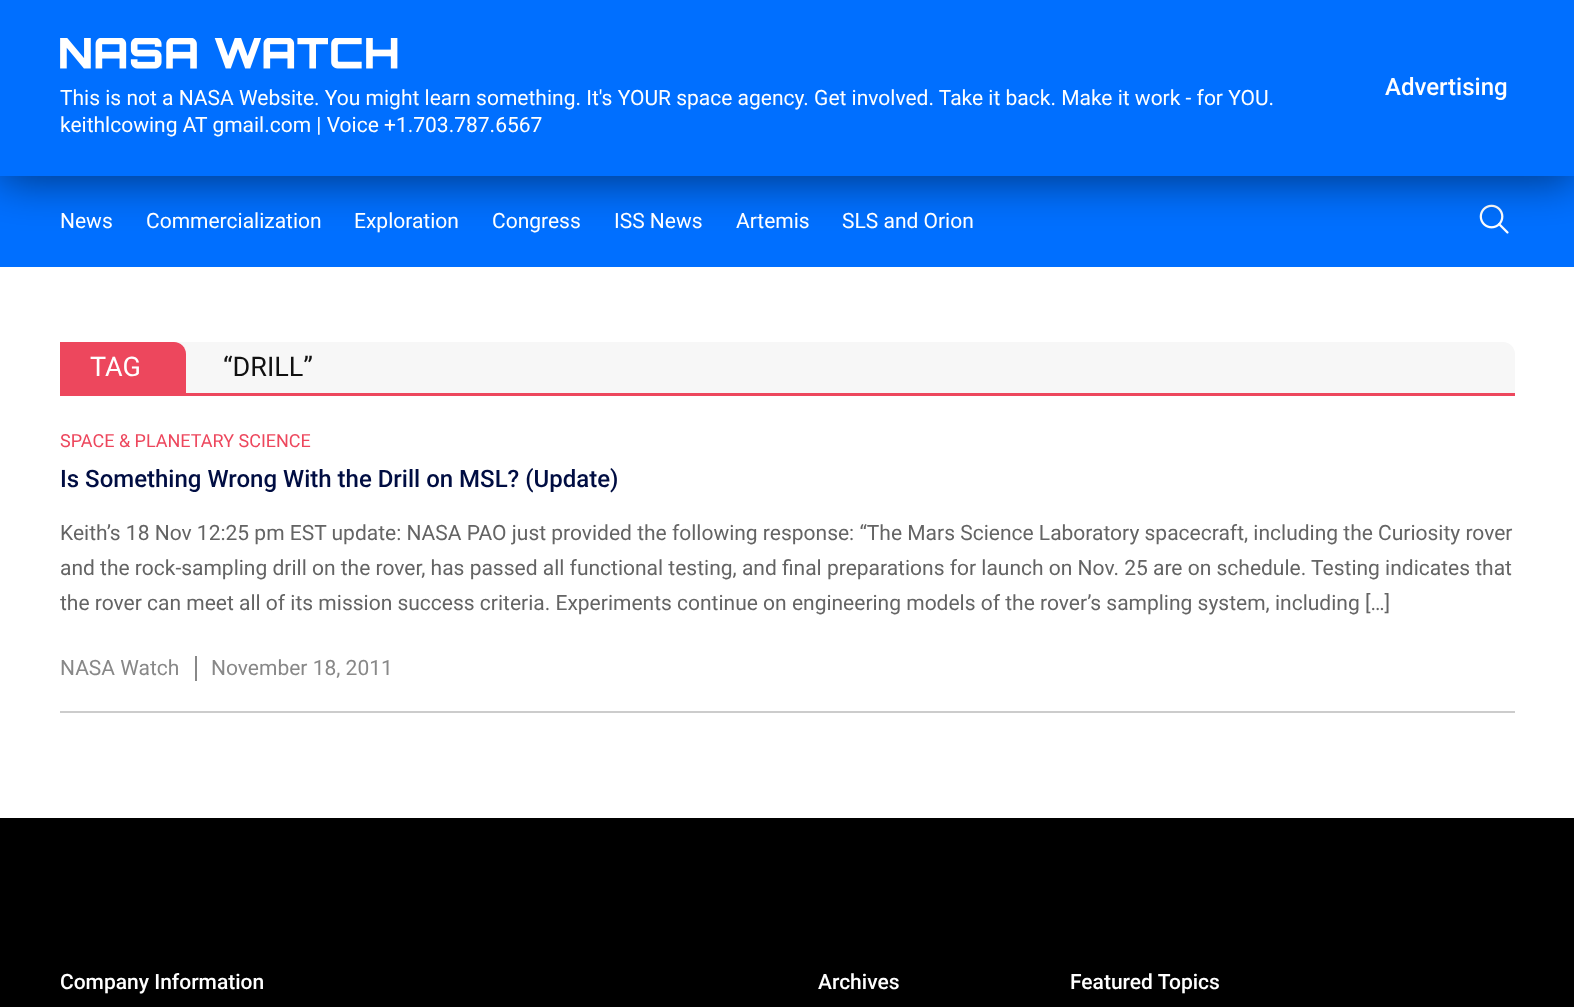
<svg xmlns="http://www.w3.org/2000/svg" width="1574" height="1007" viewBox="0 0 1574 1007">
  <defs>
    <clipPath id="clip1"><path d="M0 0H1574V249H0ZM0 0H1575V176H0Z" clip-rule="evenodd"/></clipPath>
    <filter id="blur1" x="-50%" y="-200%" width="200%" height="500%"><feGaussianBlur stdDeviation="22.5"/></filter>
  </defs>
  <rect width="100%" height="100%" fill="#ffffff"/>
  <rect x="0" y="0" width="1574" height="267" fill="#006fff"/>
  <image x="1479" y="204" width="30" height="30" href="img2.png"/>
  <g clip-path="url(#clip1)">
    <rect x="0" y="5" width="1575" height="175" fill="#000000" fill-opacity="0.51" filter="url(#blur1)"/>
  </g>
  <image x="60" y="38" width="338" height="31" href="img1.png"/>
  <text x="60" y="105" font-family="Roboto" font-size="21" fill="#ffffff">This is not a NASA Website. You might learn something. It's YOUR space agency. Get involved. Take it back. Make it work - for YOU.</text>
  <text x="60" y="132" font-family="Roboto" font-size="21" fill="#ffffff">keithlcowing AT gmail.com | Voice +1.703.787.6567</text>
  <text x="1385" y="95" font-family="Roboto" font-size="24" font-weight="500" fill="#ffffff">Advertising</text>
  <text x="60" y="228" font-family="Roboto" font-size="21" fill="#ffffff">News</text>
  <text x="146" y="228" font-family="Roboto" font-size="21" fill="#ffffff">Commercialization</text>
  <text x="354" y="228" font-family="Roboto" font-size="21" fill="#ffffff">Exploration</text>
  <text x="492" y="228" font-family="Roboto" font-size="21" fill="#ffffff">Congress</text>
  <text x="614" y="228" font-family="Roboto" font-size="21" fill="#ffffff">ISS News</text>
  <text x="736" y="228" font-family="Roboto" font-size="21" fill="#ffffff">Artemis</text>
  <text x="842" y="228" font-family="Roboto" font-size="21" fill="#ffffff">SLS and Orion</text>
  <path d="M72 342H1503C1509.5 342 1515 347.5 1515 354V396H60V354C60 347.5 65.5 342 72 342Z" fill="#f7f7f7"/>
  <rect x="60" y="393" width="1455" height="3" fill="#ed475d"/>
  <path d="M60 342H174C180.5 342 186 347.5 186 354V393H60Z" fill="#ed475d"/>
  <text x="90" y="376" font-family="Roboto" font-size="27" fill="#ffffff">TAG</text>
  <text x="223" y="376" font-family="Roboto" font-size="27" fill="#111111">“DRILL”</text>
  <rect x="60" y="711" width="1455" height="2" fill="#cccccc"/>
  <text x="60" y="447" font-family="Roboto" font-size="18" fill="#ed475d">SPACE &amp; PLANETARY SCIENCE</text>
  <text x="60" y="487" font-family="Roboto" font-size="24" font-weight="500" fill="#000d42">Is Something Wrong With the Drill on MSL? (Update)</text>
  <text x="60" y="540" font-family="Roboto" font-size="21" fill="#646464">Keith’s 18 Nov 12:25 pm EST update: NASA PAO just provided the following response: “The Mars Science Laboratory spacecraft, including the Curiosity rover</text>
  <text x="60" y="575" font-family="Roboto" font-size="21" fill="#646464">and the rock-sampling drill on the rover, has passed all functional testing, and final preparations for launch on Nov. 25 are on schedule. Testing indicates that</text>
  <text x="60" y="610" font-family="Roboto" font-size="21" fill="#646464">the rover can meet all of its mission success criteria. Experiments continue on engineering models of the rover’s sampling system, including […]</text>
  <text x="60" y="675" font-family="Roboto" font-size="21" fill="#888888">NASA Watch</text>
  <rect x="195" y="656" width="2" height="25" fill="#888888"/>
  <text x="211" y="675" font-family="Roboto" font-size="21" fill="#888888">November 18, 2011</text>
  <rect x="0" y="818" width="1574" height="189" fill="#000000"/>
  <text x="60" y="989" font-family="Roboto" font-size="21" font-weight="500" fill="#ffffff">Company Information</text>
  <text x="818" y="989" font-family="Roboto" font-size="21" font-weight="500" fill="#ffffff">Archives</text>
  <text x="1070" y="989" font-family="Roboto" font-size="21" font-weight="500" fill="#ffffff">Featured Topics</text>
</svg>
